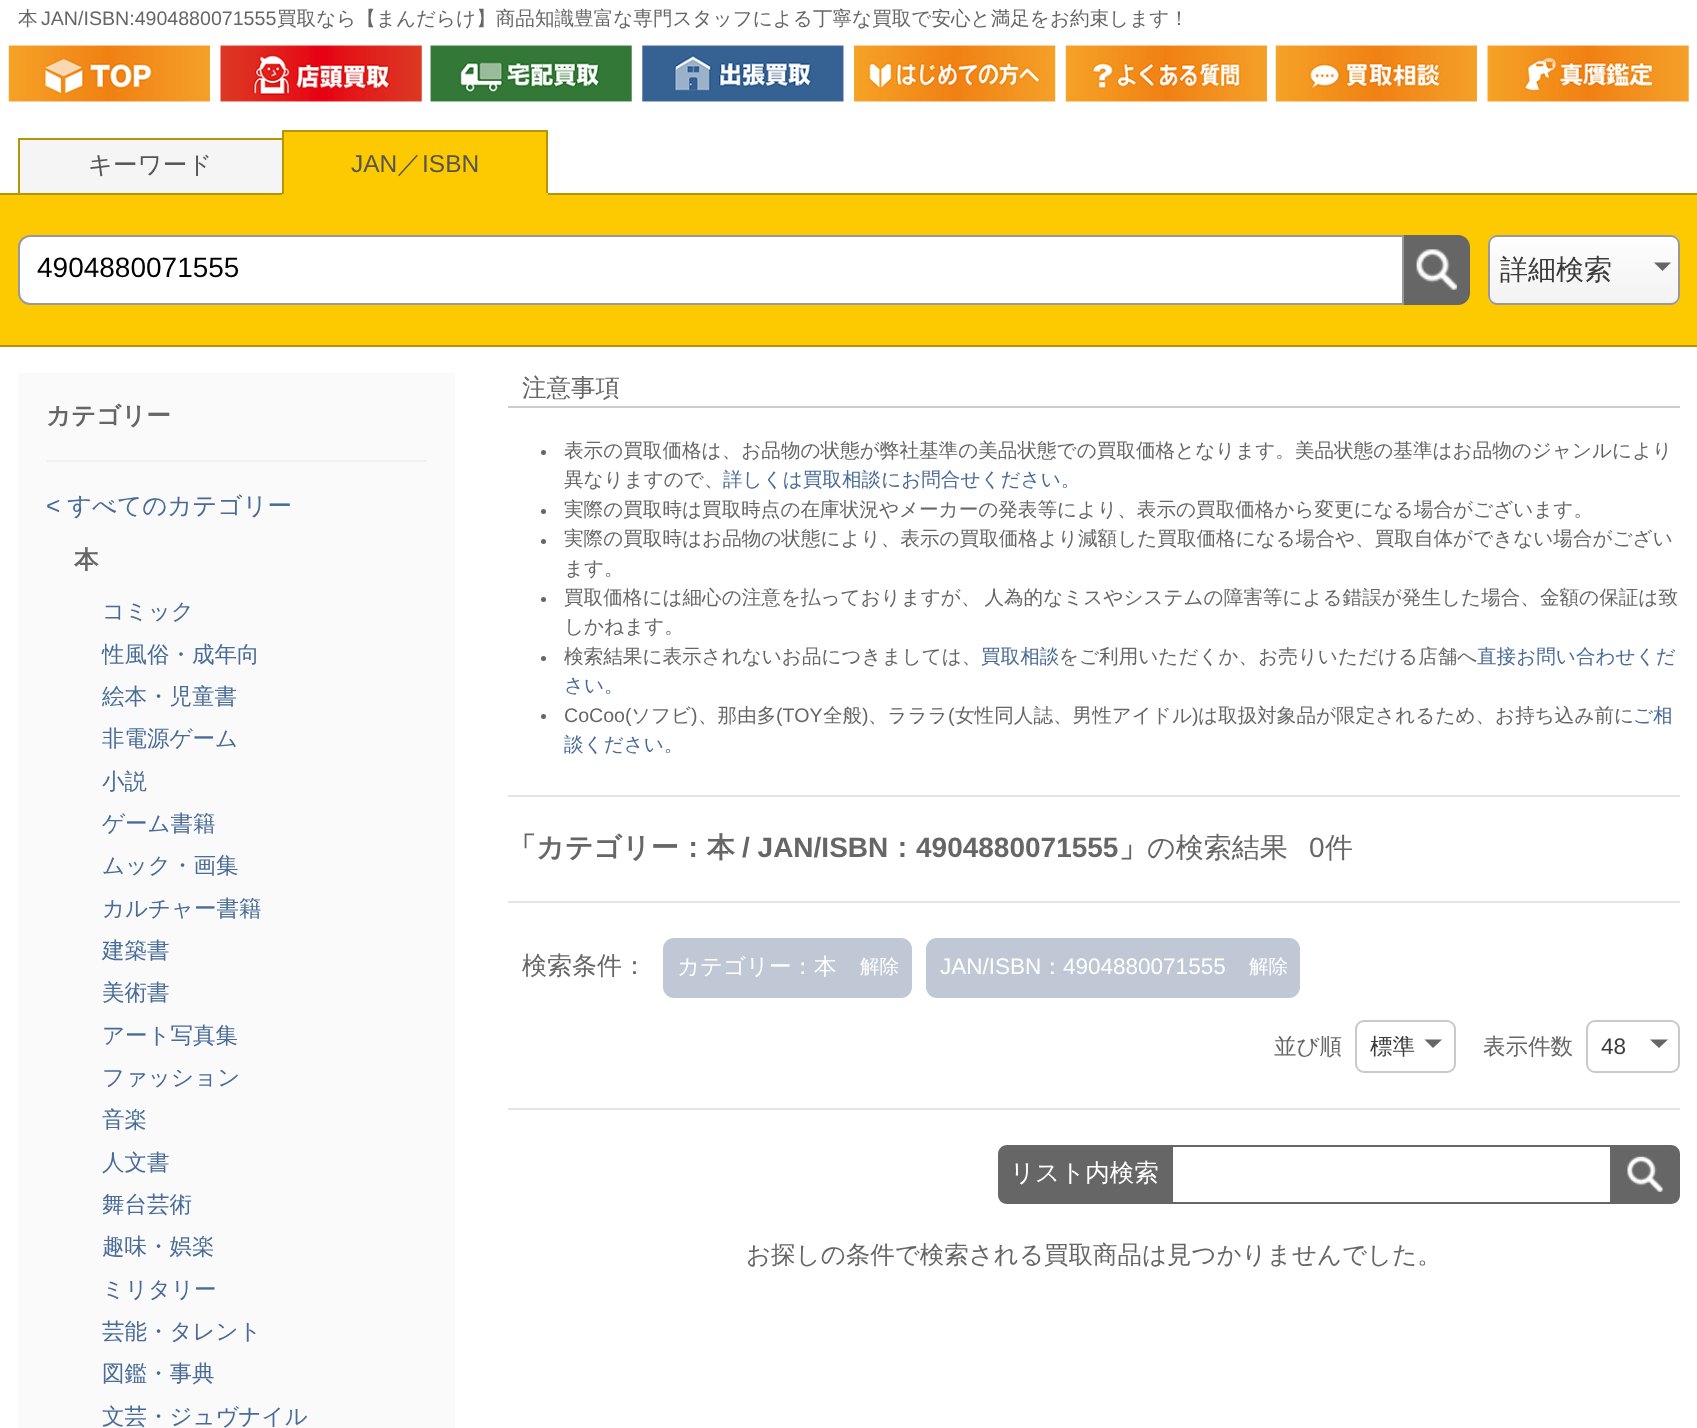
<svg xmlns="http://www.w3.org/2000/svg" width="1697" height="1428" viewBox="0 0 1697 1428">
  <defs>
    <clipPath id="clip1"><rect x="1488" y="235" width="192" height="70" rx="9"/></clipPath>
    <linearGradient id="g1" gradientUnits="userSpaceOnUse" x1="1584" y1="236" x2="1584" y2="303"><stop offset="0" stop-color="#fefefe"/><stop offset="1" stop-color="#f2f2f2"/></linearGradient>
  </defs>
  <rect width="100%" height="100%" fill="#ffffff"/>
  <text x="18" y="25" font-family="WenQuanYi Zen Hei" font-size="19.6" font-weight="500" fill="#666666">本</text>
  <text x="41" y="25" font-family="Liberation Sans" font-size="19.6" fill="#666666">JAN/ISBN:4904880071555</text>
  <text x="277" y="25" font-family="WenQuanYi Zen Hei" font-size="19.6" font-weight="500" fill="#666666">買取なら【まんだらけ】商品知識豊富な専門スタッフによる丁寧な買取で安心と満足をお約束します！</text>
  <image x="8" y="45" width="202" height="57" href="img1.png"/>
  <image x="220" y="45" width="202" height="57" href="img2.png"/>
  <image x="430" y="45" width="202" height="57" href="img3.png"/>
  <image x="642" y="45" width="202" height="57" href="img4.png"/>
  <image x="854" y="45" width="202" height="57" href="img5.png"/>
  <image x="1065" y="45" width="202" height="57" href="img6.png"/>
  <image x="1275" y="45" width="202" height="57" href="img7.png"/>
  <image x="1487" y="45" width="202" height="57" href="img8.png"/>
  <rect x="20" y="140" width="262" height="53" fill="#f5f5f5"/>
  <rect x="18" y="138" width="264" height="2" fill="#b89306"/>
  <rect x="0" y="193" width="1697" height="2" fill="#b89306"/>
  <rect x="18" y="138" width="2" height="56" fill="#b89306"/>
  <text x="88" y="173" font-family="WenQuanYi Zen Hei" font-size="24.5" font-weight="500" fill="#555555">キーワード</text>
  <rect x="284" y="132" width="262" height="61" fill="#fdc900"/>
  <rect x="282" y="130" width="266" height="2" fill="#b89306"/>
  <rect x="546" y="130" width="2" height="64" fill="#b89306"/>
  <rect x="282" y="193" width="266" height="2" fill="#fdc900"/>
  <rect x="282" y="130" width="2" height="64" fill="#b89306"/>
  <text x="351" y="172" font-family="Liberation Sans" font-size="24.5" fill="#555555">JAN</text>
  <text x="397" y="172" font-family="WenQuanYi Zen Hei" font-size="24.5" font-weight="500" fill="#555555">／</text>
  <text x="422" y="172" font-family="Liberation Sans" font-size="24.5" fill="#555555">ISBN</text>
  <rect x="0" y="195" width="1697" height="150" fill="#fdc900"/>
  <rect x="0" y="345" width="1697" height="2" fill="#b89306"/>
  <path d="M30 236H1403V304H30C24 304 19 299 19 293V247C19 241 24 236 30 236Z" fill="#ffffff" stroke="#999999" stroke-width="2"/>
  <text x="37" y="277" font-family="Liberation Sans" font-size="28" fill="#000000">4904880071555</text>
  <path d="M1404 235H1458C1464.5 235 1470 240.5 1470 247V293C1470 299.5 1464.5 305 1458 305H1404Z" fill="#666666"/>
  <image x="1416" y="249" width="41" height="41" href="img9.png"/>
  <g clip-path="url(#clip1)">
    <rect x="1488" y="236" width="192" height="67" fill="url(#g1)"/>
  </g>
  <rect x="1489" y="236" width="190" height="68" rx="8" fill="none" stroke="#999999" stroke-width="2"/>
  <text x="1500" y="279" font-family="WenQuanYi Zen Hei" font-size="28" font-weight="500" fill="#3b3b3b">詳細検索</text>
  <path d="M1654 262.5H1671L1662.5 271Z" fill="#666666"/>
  <rect x="18" y="373" width="437" height="1055" fill="#fafafa"/>
  <text x="46" y="424" font-family="WenQuanYi Zen Hei" font-size="24.5" font-weight="bold" fill="#666666">カテゴリー</text>
  <rect x="46" y="460" width="381" height="2" fill="#f1f1f1"/>
  <text x="46" y="514" font-family="Liberation Sans" font-size="24.5" fill="#486b97">&lt;</text>
  <text x="67" y="514" font-family="WenQuanYi Zen Hei" font-size="24.5" font-weight="500" fill="#486b97">すべてのカテゴリー</text>
  <text x="74" y="568" font-family="WenQuanYi Zen Hei" font-size="24.5" font-weight="bold" fill="#666666">本</text>
  <text x="102" y="619" font-family="WenQuanYi Zen Hei" font-size="22.5" font-weight="500" fill="#486b97">コミック</text>
  <text x="102" y="662" font-family="WenQuanYi Zen Hei" font-size="22.5" font-weight="500" fill="#486b97">性風俗・成年向</text>
  <text x="102" y="704" font-family="WenQuanYi Zen Hei" font-size="22.5" font-weight="500" fill="#486b97">絵本・児童書</text>
  <text x="102" y="746" font-family="WenQuanYi Zen Hei" font-size="22.5" font-weight="500" fill="#486b97">非電源ゲーム</text>
  <text x="102" y="789" font-family="WenQuanYi Zen Hei" font-size="22.5" font-weight="500" fill="#486b97">小説</text>
  <text x="102" y="831" font-family="WenQuanYi Zen Hei" font-size="22.5" font-weight="500" fill="#486b97">ゲーム書籍</text>
  <text x="102" y="873" font-family="WenQuanYi Zen Hei" font-size="22.5" font-weight="500" fill="#486b97">ムック・画集</text>
  <text x="102" y="916" font-family="WenQuanYi Zen Hei" font-size="22.5" font-weight="500" fill="#486b97">カルチャー書籍</text>
  <text x="102" y="958" font-family="WenQuanYi Zen Hei" font-size="22.5" font-weight="500" fill="#486b97">建築書</text>
  <text x="102" y="1000" font-family="WenQuanYi Zen Hei" font-size="22.5" font-weight="500" fill="#486b97">美術書</text>
  <text x="102" y="1043" font-family="WenQuanYi Zen Hei" font-size="22.5" font-weight="500" fill="#486b97">アート写真集</text>
  <text x="102" y="1085" font-family="WenQuanYi Zen Hei" font-size="22.5" font-weight="500" fill="#486b97">ファッション</text>
  <text x="102" y="1127" font-family="WenQuanYi Zen Hei" font-size="22.5" font-weight="500" fill="#486b97">音楽</text>
  <text x="102" y="1170" font-family="WenQuanYi Zen Hei" font-size="22.5" font-weight="500" fill="#486b97">人文書</text>
  <text x="102" y="1212" font-family="WenQuanYi Zen Hei" font-size="22.5" font-weight="500" fill="#486b97">舞台芸術</text>
  <text x="102" y="1254" font-family="WenQuanYi Zen Hei" font-size="22.5" font-weight="500" fill="#486b97">趣味・娯楽</text>
  <text x="102" y="1297" font-family="WenQuanYi Zen Hei" font-size="22.5" font-weight="500" fill="#486b97">ミリタリー</text>
  <text x="102" y="1339" font-family="WenQuanYi Zen Hei" font-size="22.5" font-weight="500" fill="#486b97">芸能・タレント</text>
  <text x="102" y="1381" font-family="WenQuanYi Zen Hei" font-size="22.5" font-weight="500" fill="#486b97">図鑑・事典</text>
  <text x="102" y="1424" font-family="WenQuanYi Zen Hei" font-size="22.5" font-weight="500" fill="#486b97">文芸・ジュヴナイル</text>
  <rect x="508" y="406" width="1172" height="2" fill="#cccccc"/>
  <text x="522" y="396" font-family="WenQuanYi Zen Hei" font-size="24.5" font-weight="500" fill="#666666">注意事項</text>
  <circle cx="543.5" cy="452.5" r="2.5" fill="#666666"/>
  <text x="564" y="457" font-family="WenQuanYi Zen Hei" font-size="19.6" font-weight="500" fill="#666666">表示の買取価格は、お品物の状態が弊社基準の美品状態での買取価格となります。美品状態の基準はお品物のジャンルにより</text>
  <text x="564" y="486" font-family="WenQuanYi Zen Hei" font-size="19.6" font-weight="500" fill="#666666">異なりますので、</text>
  <text x="723" y="486" font-family="WenQuanYi Zen Hei" font-size="19.6" font-weight="500" fill="#486b97">詳しくは買取相談にお問合せください。</text>
  <circle cx="543.5" cy="511.5" r="2.5" fill="#666666"/>
  <text x="564" y="516" font-family="WenQuanYi Zen Hei" font-size="19.6" font-weight="500" fill="#666666">実際の買取時は買取時点の在庫状況やメーカーの発表等により、表示の買取価格から変更になる場合がございます。</text>
  <circle cx="543.5" cy="541.5" r="2.5" fill="#666666"/>
  <text x="564" y="545" font-family="WenQuanYi Zen Hei" font-size="19.6" font-weight="500" fill="#666666">実際の買取時はお品物の状態により、表示の買取価格より減額した買取価格になる場合や、買取自体ができない場合がござい</text>
  <text x="564" y="575" font-family="WenQuanYi Zen Hei" font-size="19.6" font-weight="500" fill="#666666">ます。</text>
  <circle cx="543.5" cy="599.5" r="2.5" fill="#666666"/>
  <text x="564" y="604" word-spacing="-2" font-family="WenQuanYi Zen Hei" font-size="19.6" font-weight="500" fill="#666666">買取価格には細心の注意を払っておりますが、 人為的なミスやシステムの障害等による錯誤が発生した場合、金額の保証は致</text>
  <text x="564" y="633" font-family="WenQuanYi Zen Hei" font-size="19.6" font-weight="500" fill="#666666">しかねます。</text>
  <circle cx="543.5" cy="658.5" r="2.5" fill="#666666"/>
  <text x="564" y="663" font-family="WenQuanYi Zen Hei" font-size="19.6" font-weight="500" fill="#666666">検索結果に表示されないお品につきましては、</text>
  <text x="981" y="663" font-family="WenQuanYi Zen Hei" font-size="19.6" font-weight="500" fill="#486b97">買取相談</text>
  <text x="1059" y="663" font-family="WenQuanYi Zen Hei" font-size="19.6" font-weight="500" fill="#666666">をご利用いただくか、お売りいただける店舗へ</text>
  <text x="1477" y="663" font-family="WenQuanYi Zen Hei" font-size="19.6" font-weight="500" fill="#486b97">直接お問い合わせくだ</text>
  <text x="564" y="692" font-family="WenQuanYi Zen Hei" font-size="19.6" font-weight="500" fill="#486b97">さい。</text>
  <circle cx="543.5" cy="716.5" r="2.5" fill="#666666"/>
  <text x="564" y="722" font-family="Liberation Sans" font-size="19.6" fill="#666666">CoCoo(</text>
  <text x="631" y="722" font-family="WenQuanYi Zen Hei" font-size="19.6" font-weight="500" fill="#666666">ソフビ</text>
  <text x="691" y="722" font-family="Liberation Sans" font-size="19.6" fill="#666666">)</text>
  <text x="698" y="722" font-family="WenQuanYi Zen Hei" font-size="19.6" font-weight="500" fill="#666666">、那由多</text>
  <text x="776" y="722" font-family="Liberation Sans" font-size="19.6" fill="#666666">(TOY</text>
  <text x="823" y="722" font-family="WenQuanYi Zen Hei" font-size="19.6" font-weight="500" fill="#666666">全般</text>
  <text x="862" y="722" font-family="Liberation Sans" font-size="19.6" fill="#666666">)</text>
  <text x="868" y="722" font-family="WenQuanYi Zen Hei" font-size="19.6" font-weight="500" fill="#666666">、ラララ</text>
  <text x="948" y="722" font-family="Liberation Sans" font-size="19.6" fill="#666666">(</text>
  <text x="955" y="722" font-family="WenQuanYi Zen Hei" font-size="19.6" font-weight="500" fill="#666666">女性同人誌、男性アイドル</text>
  <text x="1192" y="722" font-family="Liberation Sans" font-size="19.6" fill="#666666">)</text>
  <text x="1198" y="722" font-family="WenQuanYi Zen Hei" font-size="19.6" font-weight="500" fill="#666666">は取扱対象品が限定されるため、お持ち込み前に</text>
  <text x="1633" y="722" font-family="WenQuanYi Zen Hei" font-size="19.6" font-weight="500" fill="#486b97">ご相</text>
  <text x="564" y="751" font-family="WenQuanYi Zen Hei" font-size="19.6" font-weight="500" fill="#486b97">談ください。</text>
  <rect x="508" y="795" width="1172" height="2" fill="#e3e4e5"/>
  <rect x="508" y="901" width="1172" height="2" fill="#e3e4e5"/>
  <text x="508" y="857" font-family="WenQuanYi Zen Hei" font-size="28" font-weight="bold" fill="#666666">「カテゴリー：本</text>
  <text x="742" y="857" font-family="Liberation Sans" font-size="28" font-weight="bold" fill="#666666">/ JAN/ISBN</text>
  <text x="888" y="857" font-family="WenQuanYi Zen Hei" font-size="28" font-weight="bold" fill="#666666">：</text>
  <text x="916" y="857" font-family="Liberation Sans" font-size="28" font-weight="bold" fill="#666666">4904880071555</text>
  <text x="1119" y="857" font-family="WenQuanYi Zen Hei" font-size="28" font-weight="bold" fill="#666666">」</text>
  <text x="1147" y="857" font-family="WenQuanYi Zen Hei" font-size="28" font-weight="500" fill="#666666">の検索結果</text>
  <text x="1309" y="857" font-family="Liberation Sans" font-size="28" fill="#666666">0</text>
  <text x="1325" y="857" font-family="WenQuanYi Zen Hei" font-size="28" font-weight="500" fill="#666666">件</text>
  <text x="522" y="974" font-family="WenQuanYi Zen Hei" font-size="25" font-weight="500" fill="#666666">検索条件：</text>
  <rect x="663" y="938" width="249" height="60" rx="11" fill="#c0c8d5"/>
  <text x="677" y="974" font-family="WenQuanYi Zen Hei" font-size="22.5" font-weight="500" fill="#ffffff">カテゴリー：本</text>
  <text x="860" y="973" font-family="WenQuanYi Zen Hei" font-size="19.6" font-weight="500" fill="#ffffff">解除</text>
  <rect x="926" y="938" width="374" height="60" rx="11" fill="#c0c8d5"/>
  <text x="940" y="974" font-family="Liberation Sans" font-size="22.5" fill="#ffffff">JAN/ISBN</text>
  <text x="1041" y="974" font-family="WenQuanYi Zen Hei" font-size="22.5" font-weight="500" fill="#ffffff">：</text>
  <text x="1063" y="974" font-family="Liberation Sans" font-size="22.5" fill="#ffffff">4904880071555</text>
  <text x="1249" y="973" font-family="WenQuanYi Zen Hei" font-size="19.6" font-weight="500" fill="#ffffff">解除</text>
  <text x="1274" y="1054" font-family="WenQuanYi Zen Hei" font-size="22.5" font-weight="500" fill="#666666">並び順</text>
  <rect x="1356" y="1021" width="99" height="51" rx="8" fill="none" stroke="#c9c9c9" stroke-width="2"/>
  <text x="1370" y="1054" font-family="WenQuanYi Zen Hei" font-size="22.5" font-weight="500" fill="#3b3b3b">標準</text>
  <path d="M1424.5 1039.5H1442L1433 1048Z" fill="#666666"/>
  <text x="1483" y="1054" font-family="WenQuanYi Zen Hei" font-size="22.5" font-weight="500" fill="#666666">表示件数</text>
  <rect x="1587" y="1021" width="92" height="51" rx="8" fill="none" stroke="#c9c9c9" stroke-width="2"/>
  <text x="1601" y="1054" font-family="Liberation Sans" font-size="22.5" fill="#3b3b3b">48</text>
  <path d="M1650 1039.5H1668L1659 1048Z" fill="#666666"/>
  <rect x="508" y="1108" width="1172" height="2" fill="#e3e4e5"/>
  <path d="M1007 1145H1173V1204H1007C1002 1204 998 1200 998 1195V1154C998 1149 1002 1145 1007 1145Z" fill="#666666"/>
  <text x="1010" y="1181" font-family="WenQuanYi Zen Hei" font-size="24.5" font-weight="500" fill="#ffffff">リスト内検索</text>
  <rect x="1173" y="1145" width="437" height="2" fill="#666666"/>
  <rect x="1173" y="1202" width="437" height="2" fill="#666666"/>
  <path d="M1610 1145H1671C1676 1145 1680 1149 1680 1154V1195C1680 1200 1676 1204 1671 1204H1610Z" fill="#666666"/>
  <image x="1627" y="1156" width="36" height="36" href="img10.png"/>
  <text x="746" y="1263" font-family="WenQuanYi Zen Hei" font-size="24.5" font-weight="500" fill="#666666">お探しの条件で検索される買取商品は見つかりませんでした。</text>
</svg>
